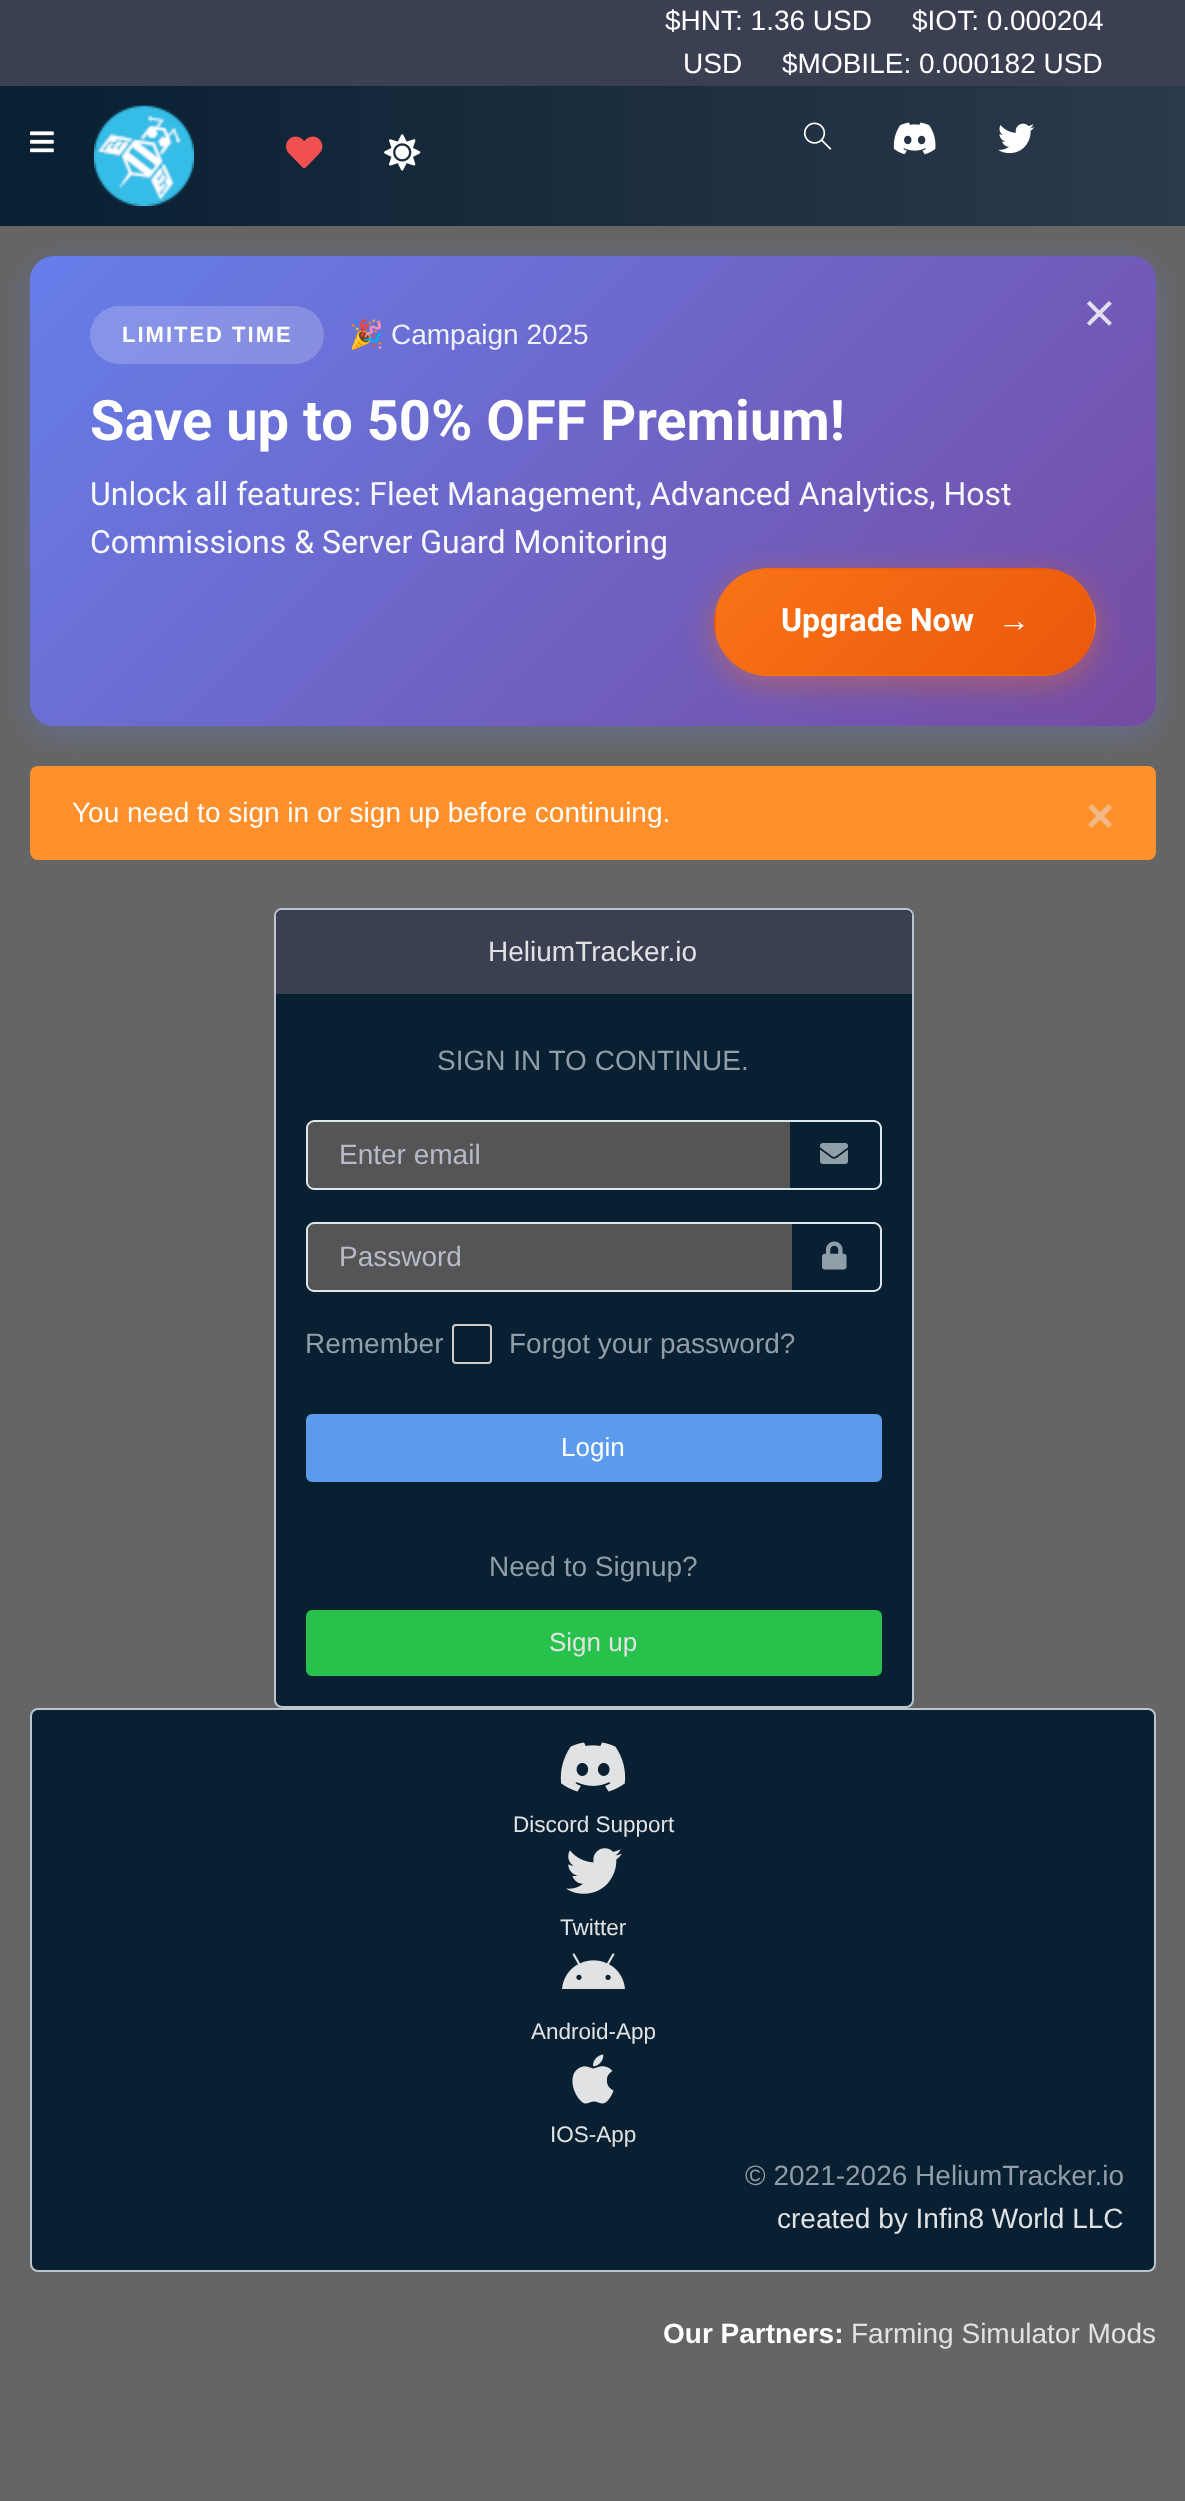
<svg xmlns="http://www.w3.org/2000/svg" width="1185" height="2501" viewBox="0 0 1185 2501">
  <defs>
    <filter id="blur1" x="-50%" y="-200%" width="200%" height="500%"><feGaussianBlur stdDeviation="15"/></filter>
    <linearGradient id="g1" gradientUnits="userSpaceOnUse" x1="0" y1="156" x2="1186" y2="156"><stop offset="0" stop-color="#082032"/><stop offset="1" stop-color="#2c394b"/></linearGradient>
    <linearGradient id="g2" gradientUnits="userSpaceOnUse" x1="194" y1="92" x2="992" y2="890"><stop offset="0" stop-color="#667eea"/><stop offset="1" stop-color="#764ba2"/></linearGradient>
    <clipPath id="clip1"><rect x="714" y="568" width="382" height="108" rx="54"/></clipPath>
    <linearGradient id="g3" gradientUnits="userSpaceOnUse" x1="785" y1="398" x2="1026" y2="639"><stop offset="0" stop-color="#f97316"/><stop offset="1" stop-color="#ea580c"/></linearGradient>
    <linearGradient id="g4" gradientUnits="userSpaceOnUse" x1="407" y1="502" x2="648" y2="743"><stop offset="0" stop-color="#f97316"/><stop offset="1" stop-color="#ea580c"/></linearGradient>
    <linearGradient id="g5" gradientUnits="userSpaceOnUse" x1="785" y1="502" x2="1026" y2="743"><stop offset="0" stop-color="#f97316"/><stop offset="1" stop-color="#ea580c"/></linearGradient>
    <linearGradient id="g6" gradientUnits="userSpaceOnUse" x1="1163" y1="502" x2="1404" y2="743"><stop offset="0" stop-color="#f97316"/><stop offset="1" stop-color="#ea580c"/></linearGradient>
    <linearGradient id="g7" gradientUnits="userSpaceOnUse" x1="785" y1="606" x2="1026" y2="847"><stop offset="0" stop-color="#f97316"/><stop offset="1" stop-color="#ea580c"/></linearGradient>
  </defs>
  <rect width="100%" height="100%" fill="#656565"/>
  <rect x="0" y="0" width="1185" height="86" fill="#3a3f51"/>
  <text x="665" y="30" font-family="Liberation Sans" font-size="28" fill="#ffffff">$HNT: 1.36 USD</text>
  <text x="912" y="30" font-family="Liberation Sans" font-size="28" fill="#ffffff">$IOT: 0.000204</text>
  <text x="683" y="73" font-family="Liberation Sans" font-size="28" fill="#ffffff">USD</text>
  <text x="782" y="73" font-family="Liberation Sans" font-size="28" fill="#ffffff">$MOBILE: 0.000182 USD</text>
  <rect x="30" y="264" width="1126" height="470" rx="24" fill="#667eea" fill-opacity="0.3" filter="url(#blur1)"/>
  <rect x="0" y="86" width="1185" height="140" fill="url(#g1)"/>
  <image x="94" y="105" width="100" height="101" href="img1.png"/>
  <image x="803" y="122" width="29" height="28" href="img2.png"/>
  <image x="893" y="122" width="43" height="33" href="img3.png"/>
  <image x="998" y="123" width="37" height="31" href="img4.png"/>
  <image x="30" y="131" width="24" height="22" href="img5.png"/>
  <image x="286" y="136" width="37" height="33" href="img6.png"/>
  <image x="384" y="134" width="37" height="37" href="img7.png"/>
  <rect x="30" y="256" width="1126" height="470" rx="24" fill="url(#g2)"/>
  <text x="1083" y="332" font-family="Liberation Sans" font-size="56" fill="#e3def1">×</text>
  <rect x="90" y="306" width="234" height="58" rx="29" fill="#ffffff" fill-opacity="0.2"/>
  <text x="122" y="342" font-family="Liberation Sans" font-size="22" font-weight="bold" letter-spacing="2" fill="#ffffff">LIMITED TIME</text>
  <text x="349" y="344" font-family="Noto Color Emoji" font-size="28" fill="#f0f1fb">🎉</text>
  <text x="391" y="344" font-family="Liberation Sans" font-size="28" fill="#f0f1fb">Campaign 2025</text>
  <text x="90" y="440" font-family="Roboto" font-size="56" font-weight="bold" fill="#ffffff">Save up to 50% OFF Premium!</text>
  <text x="90" y="505" font-family="Roboto" font-size="32" fill="#f8f7fc">Unlock all features: Fleet Management, Advanced Analytics, Host</text>
  <text x="90" y="553" font-family="Roboto" font-size="32" fill="#f8f7fc">Commissions &amp; Server Guard Monitoring</text>
  <rect x="714" y="576" width="382" height="108" rx="54" fill="#f97316" fill-opacity="0.4" filter="url(#blur1)"/>
  <g clip-path="url(#clip1)">
    <rect x="753" y="568" width="303" height="2" fill="url(#g3)"/>
    <rect x="714" y="607" width="2" height="30" fill="url(#g4)"/>
    <rect x="716" y="570" width="378" height="104" fill="url(#g5)"/>
    <rect x="1094" y="608" width="2" height="28" fill="url(#g6)"/>
    <rect x="754" y="674" width="302" height="2" fill="url(#g7)"/>
  </g>
  <text x="781" y="631" font-family="Roboto" font-size="32" font-weight="bold" fill="#ffffff">Upgrade Now</text>
  <text x="998" y="631" font-family="Liberation Sans" font-size="32" font-weight="bold" fill="#ffffff">→</text>
  <rect x="31" y="767" width="1124" height="92" rx="7" fill="#ff902b" stroke="#ff902b" stroke-width="2"/>
  <text x="72" y="822" font-family="Liberation Sans" font-size="28" fill="#ffffff">You need to sign in or sign up before continuing.</text>
  <text x="1086" y="832" font-family="Liberation Sans" font-size="48" font-weight="bold" fill="#f0b987">×</text>
  <rect x="275" y="909" width="638" height="798" rx="7" fill="#082032" stroke="#bdc6d0" stroke-width="2"/>
  <path d="M282 910H906C909.5 910 912 912.5 912 916V994H276V916C276 912.5 278.5 910 282 910Z" fill="#3a3f51"/>
  <text x="488" y="961" font-family="Liberation Sans" font-size="28" fill="#e1e2e3">HeliumTracker.io</text>
  <text x="437" y="1070" font-family="Liberation Sans" font-size="28" fill="#919da8">SIGN IN TO CONTINUE.</text>
  <path d="M788 1120H874C878 1120 882 1124 882 1128V1182C882 1186 878 1190 874 1190H788ZM788 1122H874C877 1122 880 1125 880 1128V1182C880 1185 877 1188 874 1188H788Z" fill="#dde6e9" fill-rule="evenodd"/>
  <path d="M314 1122H790V1188H314C310.5 1188 308 1185.5 308 1182V1128C308 1124.5 310.5 1122 314 1122Z" fill="#555555"/>
  <path d="M314 1120H790V1190H314C310 1190 306 1186 306 1182V1128C306 1124 310 1120 314 1120ZM314 1122H790V1188H314C311 1188 308 1185 308 1182V1128C308 1125 311 1122 314 1122Z" fill="#dde6e9" fill-rule="evenodd"/>
  <text x="339" y="1164" font-family="Liberation Sans" font-size="28" fill="#b7bac9">Enter email</text>
  <image x="820" y="1143" width="28" height="21" href="img8.png"/>
  <path d="M790 1222H874C878 1222 882 1226 882 1230V1284C882 1288 878 1292 874 1292H790ZM790 1224H874C877 1224 880 1227 880 1230V1284C880 1287 877 1290 874 1290H790Z" fill="#dde6e9" fill-rule="evenodd"/>
  <path d="M314 1224H792V1290H314C310.5 1290 308 1287.5 308 1284V1230C308 1226.5 310.5 1224 314 1224Z" fill="#555555"/>
  <path d="M314 1222H792V1292H314C310 1292 306 1288 306 1284V1230C306 1226 310 1222 314 1222ZM314 1224H792V1290H314C311 1290 308 1287 308 1284V1230C308 1227 311 1224 314 1224Z" fill="#dde6e9" fill-rule="evenodd"/>
  <text x="339" y="1266" font-family="Liberation Sans" font-size="28" fill="#b7bac9">Password</text>
  <image x="822" y="1241" width="25" height="29" href="img9.png"/>
  <text x="305" y="1353" font-family="Liberation Sans" font-size="28" fill="#919da8">Remember</text>
  <rect x="453" y="1325" width="38" height="38" rx="3" fill="none" stroke="#cccccc" stroke-width="2"/>
  <text x="509" y="1353" font-family="Liberation Sans" font-size="28" fill="#919da8">Forgot your password?</text>
  <rect x="307" y="1415" width="574" height="66" rx="5" fill="#5d9cec" stroke="#5d9cec" stroke-width="2"/>
  <text x="561" y="1456" font-family="Liberation Sans" font-size="26" fill="#ffffff">Login</text>
  <text x="489" y="1576" font-family="Liberation Sans" font-size="28" fill="#919da8">Need to Signup?</text>
  <rect x="307" y="1611" width="574" height="64" rx="5" fill="#27c24c" stroke="#27c24c" stroke-width="2"/>
  <text x="549" y="1651" font-family="Liberation Sans" font-size="26" fill="#e1e2e3">Sign up</text>
  <rect x="31" y="1709" width="1124" height="562" rx="7" fill="#082032" stroke="#bdc6d0" stroke-width="2"/>
  <image x="560" y="1742" width="66" height="50" href="img10.png"/>
  <text x="513" y="1832" font-family="Liberation Sans" font-size="22.5" fill="#e1e2e3">Discord Support</text>
  <image x="566" y="1848" width="56" height="46" href="img11.png"/>
  <text x="560" y="1935" font-family="Liberation Sans" font-size="22.5" fill="#e1e2e3">Twitter</text>
  <image x="562" y="1953" width="63" height="36" href="img12.png"/>
  <text x="531" y="2039" font-family="Liberation Sans" font-size="22.5" fill="#e1e2e3">Android-App</text>
  <image x="572" y="2054" width="42" height="50" href="img13.png"/>
  <text x="550" y="2142" font-family="Liberation Sans" font-size="22.5" fill="#e1e2e3">IOS-App</text>
  <text x="745" y="2185" font-family="Liberation Sans" font-size="28" fill="#919da8">© 2021-2026 HeliumTracker.io</text>
  <text x="777" y="2228" font-family="Liberation Sans" font-size="28" fill="#e1e2e3">created by Infin8 World LLC</text>
  <text x="663" y="2343" font-family="Liberation Sans" font-size="28" font-weight="bold" fill="#ffffff">Our Partners:</text>
  <text x="851" y="2343" font-family="Liberation Sans" font-size="28" fill="#e1e2e3">Farming Simulator Mods</text>
</svg>
